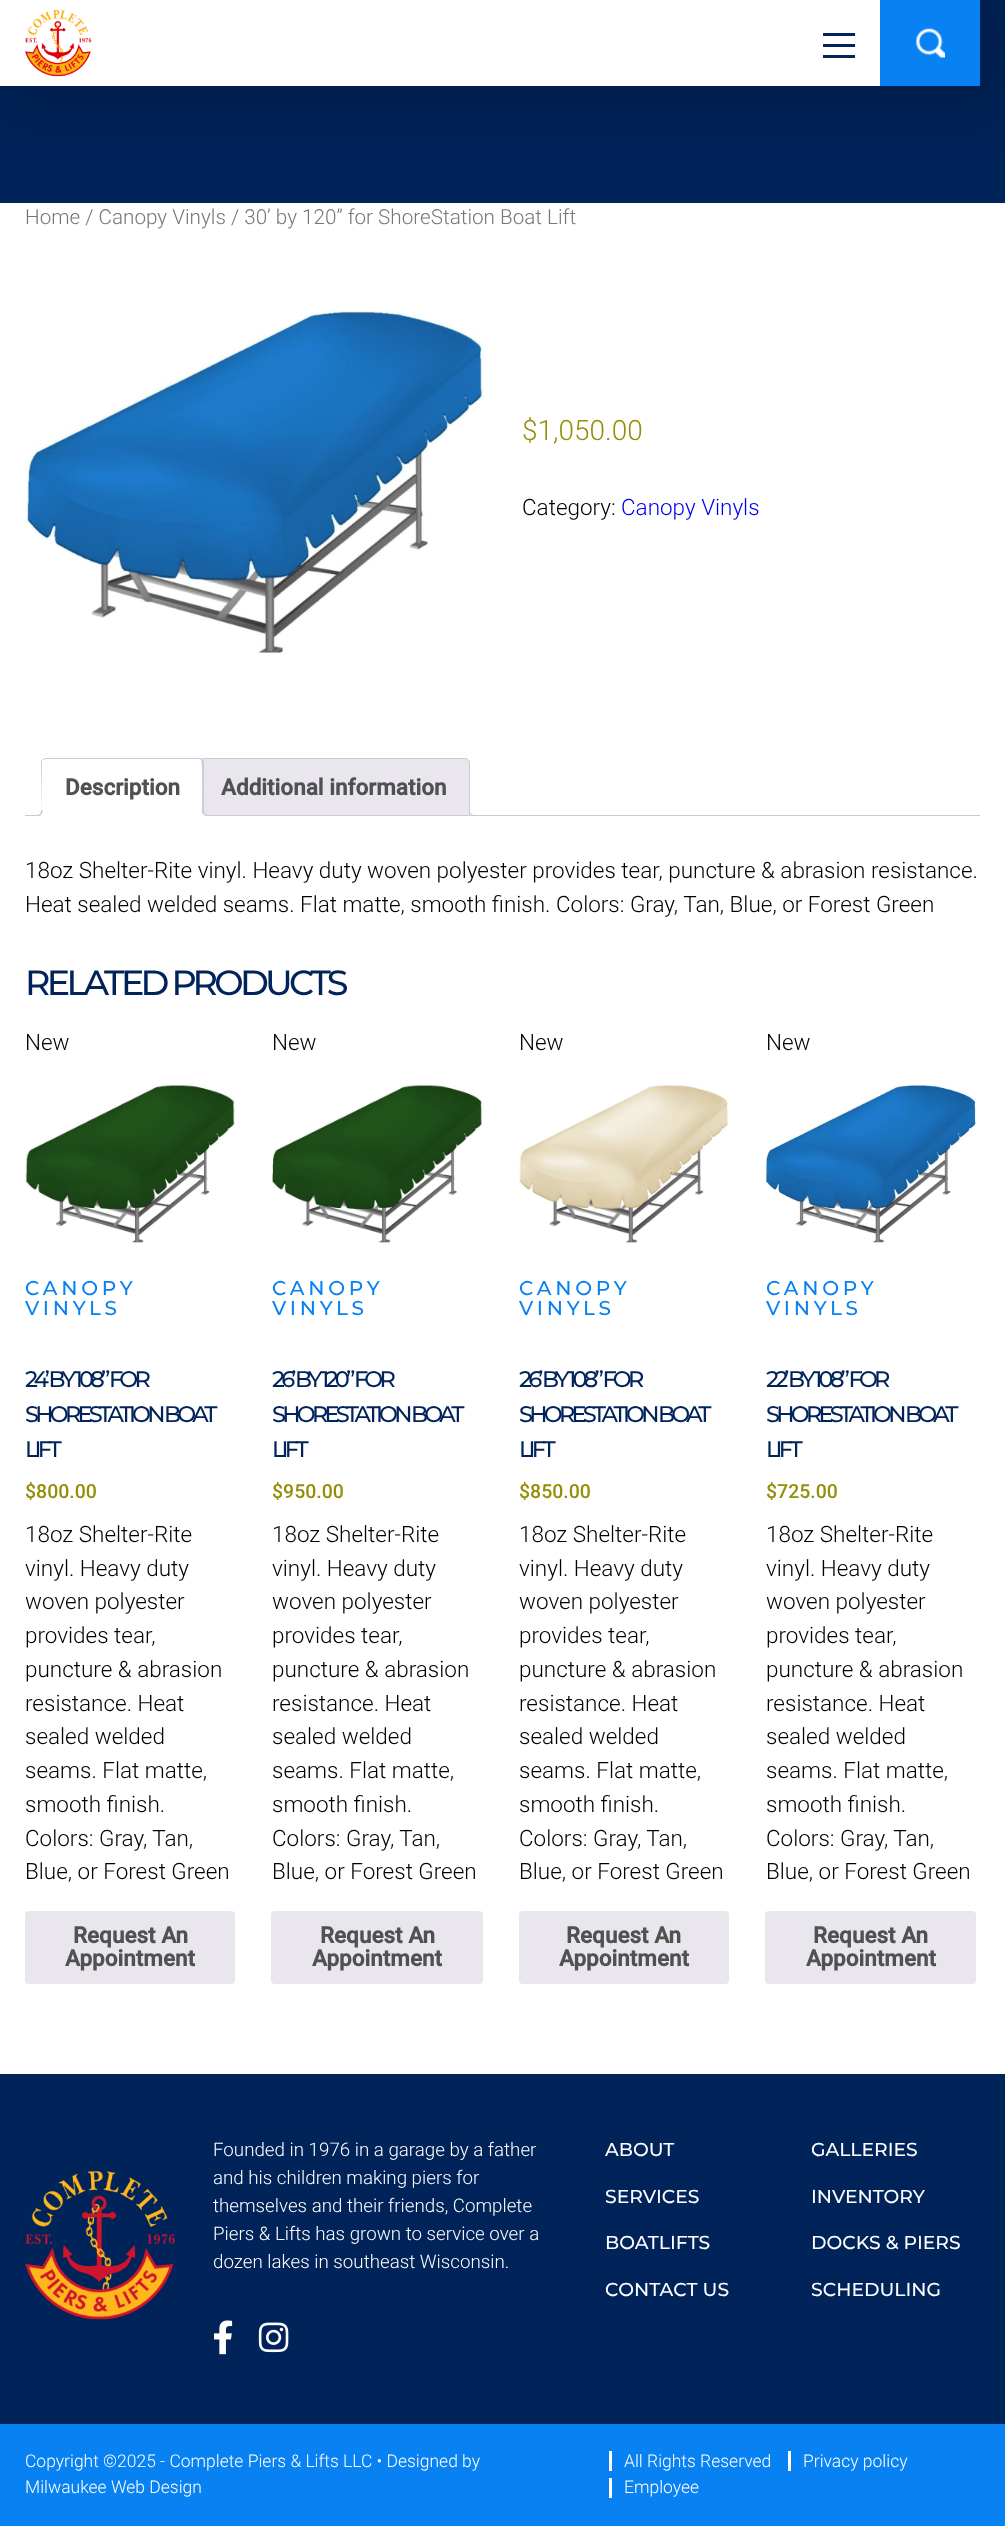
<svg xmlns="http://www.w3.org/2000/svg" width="1005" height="2526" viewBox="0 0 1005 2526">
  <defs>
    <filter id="blur1" x="-50%" y="-200%" width="200%" height="500%"><feGaussianBlur stdDeviation="32.5"/></filter>
    <clipPath id="clip1"><rect x="25" y="758" width="955" height="58"/></clipPath>
  </defs>
  <rect width="100%" height="100%" fill="#ffffff"/>
  <rect x="0" y="0" width="1005" height="203" fill="#00235a"/>
  <rect x="-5" y="-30" width="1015" height="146" fill="#000000" fill-opacity="0.16" filter="url(#blur1)"/>
  <rect x="0" y="0" width="880" height="86" fill="#ffffff"/>
  <image x="25" y="10" width="67" height="67" href="img1.png"/>
  <rect x="823" y="33" width="32" height="3" fill="#00235a"/>
  <rect x="823" y="44" width="32" height="3" fill="#00235a"/>
  <rect x="823" y="55" width="32" height="3" fill="#00235a"/>
  <rect x="880" y="0" width="100" height="86" fill="#0881f3"/>
  <image x="916" y="28" width="29" height="30" href="img2.png"/>
  <text x="25" y="224" font-family="Roboto" font-size="20.7" font-weight="300" fill="#767676">Home / Canopy Vinyls / 30’ by 120” for ShoreStation Boat Lift</text>
  <image x="25" y="311" width="459" height="343" href="img3.png"/>
  <text x="522" y="440" font-family="Roboto" font-size="28" font-weight="300" fill="#958e09">$1,050.00</text>
  <text x="522" y="515" font-family="Roboto" font-size="22.5" font-weight="300" fill="#000000">Category:</text>
  <text x="621" y="515" font-family="Roboto" font-size="22.5" font-weight="300" fill="#0000ee">Canopy Vinyls</text>
  <path d="M201 758.5H465C467.5 758.5 469.5 760.5 469.5 763V815.5H196.5V763C196.5 760.5 198.5 758.5 201 758.5Z" fill="#e9e6ed" stroke="#cfc8d8"/>
  <g clip-path="url(#clip1)">
    <path d="M466 813C466 818 468.5 819 473 819V816C471 816 469.5 814.5 469 813Z" fill="#e9e6ed"/>
  </g>
  <path d="M469 810H475V816C472 816 469 815 469 811ZM470 810H475V815C472.5 815 470 814 470 811Z" fill="#cfc8d8" fill-rule="evenodd"/>
  <rect x="25" y="815" width="955" height="1" fill="#cfc8d8"/>
  <path d="M46 758H199C202 758 204 760 204 763V816H41V763C41 760 43 758 46 758Z" fill="#ffffff"/>
  <path d="M46 758L43 759V760L46 759H199L201 760L202 759L199 758Z" fill="#cfc8d8"/>
  <path d="M202 759L204 761V816L202 814C202 808 203 762 201 760Z" fill="#cfc8d8"/>
  <path d="M204 816H42V815H202V814Z" fill="#ffffff"/>
  <path d="M41 761L43 759V760L42 761V815V816Z" fill="#cfc8d8"/>
  <text x="65" y="795" font-family="Roboto" font-size="22.5" font-weight="bold" fill="#515151">Description</text>
  <g clip-path="url(#clip1)">
    <path d="M39 816V819C43 819 45 817 45 813H42C41.5 814.5 40.5 815.5 39 816Z" fill="#ffffff"/>
  </g>
  <path d="M36 810H42.5C42.5 814.5 40.5 816 36 816ZM36 810H41C41 813.5 40 815 36 815Z" fill="#cfc8d8" fill-rule="evenodd"/>
  <g clip-path="url(#clip1)">
    <path d="M200 813C200 817 202 819 206 819V816C204.5 815.5 203.5 814.5 203 813Z" fill="#ffffff"/>
  </g>
  <path d="M202.5 810H209V816C205.5 816 202.5 815 202.5 811ZM204 810H209V815C206.5 815 204 814 204 811Z" fill="#cfc8d8" fill-rule="evenodd"/>
  <text x="221" y="795" font-family="Roboto" font-size="22.5" font-weight="bold" fill="#515151">Additional information</text>
  <text x="25" y="878" font-family="Roboto" font-size="22.5" font-weight="300" fill="#000000">18oz Shelter-Rite vinyl. Heavy duty woven polyester provides tear, puncture &amp; abrasion resistance.</text>
  <text x="25" y="912" font-family="Roboto" font-size="22.5" font-weight="300" fill="#000000">Heat sealed welded seams. Flat matte, smooth finish. Colors: Gray, Tan, Blue, or Forest Green</text>
  <text x="25" y="995" font-family="Montserrat" font-size="35" font-weight="500" letter-spacing="-3.75" fill="#00235a">RELATED PRODUCTS</text>
  <text x="25" y="1050" font-family="Roboto" font-size="22.5" font-weight="300" fill="#000000">New</text>
  <image x="25" y="1085" width="210" height="158" href="img4.png"/>
  <text x="25" y="1295" font-family="Montserrat" font-size="20" font-weight="500" letter-spacing="3.75" fill="#0881f3">CANOPY</text>
  <text x="25" y="1315" font-family="Montserrat" font-size="20" font-weight="500" letter-spacing="3.75" fill="#0881f3">VINYLS</text>
  <text x="25" y="1387" font-family="Montserrat" font-size="22.5" font-weight="500" letter-spacing="-3.75" fill="#00235a">24’ BY 108” FOR</text>
  <text x="25" y="1422" font-family="Montserrat" font-size="22.5" font-weight="500" letter-spacing="-3.75" fill="#00235a">SHORESTATION BOAT</text>
  <text x="25" y="1457" font-family="Montserrat" font-size="22.5" font-weight="500" letter-spacing="-3.75" fill="#00235a">LIFT</text>
  <text x="25" y="1498" font-family="Roboto" font-size="19.5" font-weight="500" fill="#958e09">$800.00</text>
  <text x="25" y="1542" font-family="Roboto" font-size="22.5" font-weight="300" fill="#000000">18oz Shelter-Rite</text>
  <text x="25" y="1576" font-family="Roboto" font-size="22.5" font-weight="300" fill="#000000">vinyl. Heavy duty</text>
  <text x="25" y="1609" font-family="Roboto" font-size="22.5" font-weight="300" fill="#000000">woven polyester</text>
  <text x="25" y="1643" font-family="Roboto" font-size="22.5" font-weight="300" fill="#000000">provides tear,</text>
  <text x="25" y="1677" font-family="Roboto" font-size="22.5" font-weight="300" fill="#000000">puncture &amp; abrasion</text>
  <text x="25" y="1711" font-family="Roboto" font-size="22.5" font-weight="300" fill="#000000">resistance. Heat</text>
  <text x="25" y="1744" font-family="Roboto" font-size="22.5" font-weight="300" fill="#000000">sealed welded</text>
  <text x="25" y="1778" font-family="Roboto" font-size="22.5" font-weight="300" fill="#000000">seams. Flat matte,</text>
  <text x="25" y="1812" font-family="Roboto" font-size="22.5" font-weight="300" fill="#000000">smooth finish.</text>
  <text x="25" y="1846" font-family="Roboto" font-size="22.5" font-weight="300" fill="#000000">Colors: Gray, Tan,</text>
  <text x="25" y="1879" font-family="Roboto" font-size="22.5" font-weight="300" fill="#000000">Blue, or Forest Green</text>
  <rect x="25" y="1911" width="210" height="73" rx="4" fill="#e9e6ed"/>
  <text x="73" y="1943" font-family="Roboto" font-size="22.5" font-weight="bold" fill="#515151">Request An</text>
  <text x="65" y="1966" font-family="Roboto" font-size="22.5" font-weight="bold" fill="#515151">Appointment</text>
  <text x="272" y="1050" font-family="Roboto" font-size="22.5" font-weight="300" fill="#000000">New</text>
  <image x="272" y="1085" width="211" height="158" href="img5.png"/>
  <text x="272" y="1295" font-family="Montserrat" font-size="20" font-weight="500" letter-spacing="3.75" fill="#0881f3">CANOPY</text>
  <text x="272" y="1315" font-family="Montserrat" font-size="20" font-weight="500" letter-spacing="3.75" fill="#0881f3">VINYLS</text>
  <text x="272" y="1387" font-family="Montserrat" font-size="22.5" font-weight="500" letter-spacing="-3.75" fill="#00235a">26’ BY 120” FOR</text>
  <text x="272" y="1422" font-family="Montserrat" font-size="22.5" font-weight="500" letter-spacing="-3.75" fill="#00235a">SHORESTATION BOAT</text>
  <text x="272" y="1457" font-family="Montserrat" font-size="22.5" font-weight="500" letter-spacing="-3.75" fill="#00235a">LIFT</text>
  <text x="272" y="1498" font-family="Roboto" font-size="19.5" font-weight="500" fill="#958e09">$950.00</text>
  <text x="272" y="1542" font-family="Roboto" font-size="22.5" font-weight="300" fill="#000000">18oz Shelter-Rite</text>
  <text x="272" y="1576" font-family="Roboto" font-size="22.5" font-weight="300" fill="#000000">vinyl. Heavy duty</text>
  <text x="272" y="1609" font-family="Roboto" font-size="22.5" font-weight="300" fill="#000000">woven polyester</text>
  <text x="272" y="1643" font-family="Roboto" font-size="22.5" font-weight="300" fill="#000000">provides tear,</text>
  <text x="272" y="1677" font-family="Roboto" font-size="22.5" font-weight="300" fill="#000000">puncture &amp; abrasion</text>
  <text x="272" y="1711" font-family="Roboto" font-size="22.5" font-weight="300" fill="#000000">resistance. Heat</text>
  <text x="272" y="1744" font-family="Roboto" font-size="22.5" font-weight="300" fill="#000000">sealed welded</text>
  <text x="272" y="1778" font-family="Roboto" font-size="22.5" font-weight="300" fill="#000000">seams. Flat matte,</text>
  <text x="272" y="1812" font-family="Roboto" font-size="22.5" font-weight="300" fill="#000000">smooth finish.</text>
  <text x="272" y="1846" font-family="Roboto" font-size="22.5" font-weight="300" fill="#000000">Colors: Gray, Tan,</text>
  <text x="272" y="1879" font-family="Roboto" font-size="22.5" font-weight="300" fill="#000000">Blue, or Forest Green</text>
  <rect x="271" y="1911" width="212" height="73" rx="4" fill="#e9e6ed"/>
  <text x="320" y="1943" font-family="Roboto" font-size="22.5" font-weight="bold" fill="#515151">Request An</text>
  <text x="312" y="1966" font-family="Roboto" font-size="22.5" font-weight="bold" fill="#515151">Appointment</text>
  <text x="519" y="1050" font-family="Roboto" font-size="22.5" font-weight="300" fill="#000000">New</text>
  <image x="519" y="1085" width="210" height="158" href="img6.png"/>
  <text x="519" y="1295" font-family="Montserrat" font-size="20" font-weight="500" letter-spacing="3.75" fill="#0881f3">CANOPY</text>
  <text x="519" y="1315" font-family="Montserrat" font-size="20" font-weight="500" letter-spacing="3.75" fill="#0881f3">VINYLS</text>
  <text x="519" y="1387" font-family="Montserrat" font-size="22.5" font-weight="500" letter-spacing="-3.75" fill="#00235a">26’ BY 108” FOR</text>
  <text x="519" y="1422" font-family="Montserrat" font-size="22.5" font-weight="500" letter-spacing="-3.75" fill="#00235a">SHORESTATION BOAT</text>
  <text x="519" y="1457" font-family="Montserrat" font-size="22.5" font-weight="500" letter-spacing="-3.75" fill="#00235a">LIFT</text>
  <text x="519" y="1498" font-family="Roboto" font-size="19.5" font-weight="500" fill="#958e09">$850.00</text>
  <text x="519" y="1542" font-family="Roboto" font-size="22.5" font-weight="300" fill="#000000">18oz Shelter-Rite</text>
  <text x="519" y="1576" font-family="Roboto" font-size="22.5" font-weight="300" fill="#000000">vinyl. Heavy duty</text>
  <text x="519" y="1609" font-family="Roboto" font-size="22.5" font-weight="300" fill="#000000">woven polyester</text>
  <text x="519" y="1643" font-family="Roboto" font-size="22.5" font-weight="300" fill="#000000">provides tear,</text>
  <text x="519" y="1677" font-family="Roboto" font-size="22.5" font-weight="300" fill="#000000">puncture &amp; abrasion</text>
  <text x="519" y="1711" font-family="Roboto" font-size="22.5" font-weight="300" fill="#000000">resistance. Heat</text>
  <text x="519" y="1744" font-family="Roboto" font-size="22.5" font-weight="300" fill="#000000">sealed welded</text>
  <text x="519" y="1778" font-family="Roboto" font-size="22.5" font-weight="300" fill="#000000">seams. Flat matte,</text>
  <text x="519" y="1812" font-family="Roboto" font-size="22.5" font-weight="300" fill="#000000">smooth finish.</text>
  <text x="519" y="1846" font-family="Roboto" font-size="22.5" font-weight="300" fill="#000000">Colors: Gray, Tan,</text>
  <text x="519" y="1879" font-family="Roboto" font-size="22.5" font-weight="300" fill="#000000">Blue, or Forest Green</text>
  <rect x="519" y="1911" width="210" height="73" rx="4" fill="#e9e6ed"/>
  <text x="566" y="1943" font-family="Roboto" font-size="22.5" font-weight="bold" fill="#515151">Request An</text>
  <text x="559" y="1966" font-family="Roboto" font-size="22.5" font-weight="bold" fill="#515151">Appointment</text>
  <text x="766" y="1050" font-family="Roboto" font-size="22.5" font-weight="300" fill="#000000">New</text>
  <image x="765" y="1085" width="211" height="158" href="img7.png"/>
  <text x="766" y="1295" font-family="Montserrat" font-size="20" font-weight="500" letter-spacing="3.75" fill="#0881f3">CANOPY</text>
  <text x="766" y="1315" font-family="Montserrat" font-size="20" font-weight="500" letter-spacing="3.75" fill="#0881f3">VINYLS</text>
  <text x="766" y="1387" font-family="Montserrat" font-size="22.5" font-weight="500" letter-spacing="-3.75" fill="#00235a">22’ BY 108” FOR</text>
  <text x="766" y="1422" font-family="Montserrat" font-size="22.5" font-weight="500" letter-spacing="-3.75" fill="#00235a">SHORESTATION BOAT</text>
  <text x="766" y="1457" font-family="Montserrat" font-size="22.5" font-weight="500" letter-spacing="-3.75" fill="#00235a">LIFT</text>
  <text x="766" y="1498" font-family="Roboto" font-size="19.5" font-weight="500" fill="#958e09">$725.00</text>
  <text x="766" y="1542" font-family="Roboto" font-size="22.5" font-weight="300" fill="#000000">18oz Shelter-Rite</text>
  <text x="766" y="1576" font-family="Roboto" font-size="22.5" font-weight="300" fill="#000000">vinyl. Heavy duty</text>
  <text x="766" y="1609" font-family="Roboto" font-size="22.5" font-weight="300" fill="#000000">woven polyester</text>
  <text x="766" y="1643" font-family="Roboto" font-size="22.5" font-weight="300" fill="#000000">provides tear,</text>
  <text x="766" y="1677" font-family="Roboto" font-size="22.5" font-weight="300" fill="#000000">puncture &amp; abrasion</text>
  <text x="766" y="1711" font-family="Roboto" font-size="22.5" font-weight="300" fill="#000000">resistance. Heat</text>
  <text x="766" y="1744" font-family="Roboto" font-size="22.5" font-weight="300" fill="#000000">sealed welded</text>
  <text x="766" y="1778" font-family="Roboto" font-size="22.5" font-weight="300" fill="#000000">seams. Flat matte,</text>
  <text x="766" y="1812" font-family="Roboto" font-size="22.5" font-weight="300" fill="#000000">smooth finish.</text>
  <text x="766" y="1846" font-family="Roboto" font-size="22.5" font-weight="300" fill="#000000">Colors: Gray, Tan,</text>
  <text x="766" y="1879" font-family="Roboto" font-size="22.5" font-weight="300" fill="#000000">Blue, or Forest Green</text>
  <rect x="765" y="1911" width="211" height="73" rx="4" fill="#e9e6ed"/>
  <text x="813" y="1943" font-family="Roboto" font-size="22.5" font-weight="bold" fill="#515151">Request An</text>
  <text x="806" y="1966" font-family="Roboto" font-size="22.5" font-weight="bold" fill="#515151">Appointment</text>
  <rect x="0" y="2074" width="1005" height="350" fill="#00235a"/>
  <image x="25" y="2171" width="150" height="149" href="img8.png"/>
  <text x="213" y="2156" font-family="Roboto" font-size="18.75" font-weight="300" fill="#ffffff">Founded in 1976 in a garage by a father</text>
  <text x="213" y="2184" font-family="Roboto" font-size="18.75" font-weight="300" fill="#ffffff">and his children making piers for</text>
  <text x="213" y="2212" font-family="Roboto" font-size="18.75" font-weight="300" fill="#ffffff">themselves and their friends, Complete</text>
  <text x="213" y="2240" font-family="Roboto" font-size="18.75" font-weight="300" fill="#ffffff">Piers &amp; Lifts has grown to service over a</text>
  <text x="213" y="2268" font-family="Roboto" font-size="18.75" font-weight="300" fill="#ffffff">dozen lakes in southeast Wisconsin.</text>
  <image x="214" y="2320" width="19" height="35" href="img9.png"/>
  <image x="258" y="2322" width="31" height="31" href="img10.png"/>
  <text x="605" y="2156" font-family="Montserrat" font-size="18.75" font-weight="500" fill="#ffffff">ABOUT</text>
  <text x="811" y="2156" font-family="Montserrat" font-size="18.75" font-weight="500" fill="#ffffff">GALLERIES</text>
  <text x="605" y="2203" font-family="Montserrat" font-size="18.75" font-weight="500" fill="#ffffff">SERVICES</text>
  <text x="811" y="2203" font-family="Montserrat" font-size="18.75" font-weight="500" fill="#ffffff">INVENTORY</text>
  <text x="605" y="2249" font-family="Montserrat" font-size="18.75" font-weight="500" fill="#ffffff">BOATLIFTS</text>
  <text x="811" y="2249" font-family="Montserrat" font-size="18.75" font-weight="500" fill="#ffffff">DOCKS &amp; PIERS</text>
  <text x="605" y="2296" font-family="Montserrat" font-size="18.75" font-weight="500" fill="#ffffff">CONTACT US</text>
  <text x="811" y="2296" font-family="Montserrat" font-size="18.75" font-weight="500" fill="#ffffff">SCHEDULING</text>
  <rect x="0" y="2424" width="1005" height="102" fill="#0881f3"/>
  <text x="25" y="2467" font-family="Roboto" font-size="17.5" font-weight="300" fill="#ffffff">Copyright ©2025 - Complete Piers &amp; Lifts LLC • Designed by</text>
  <text x="25" y="2493" font-family="Roboto" font-size="17.5" font-weight="300" fill="#ffffff">Milwaukee Web Design</text>
  <rect x="609" y="2451" width="3" height="20" fill="#ffffff"/>
  <text x="624" y="2467" font-family="Roboto" font-size="17.5" font-weight="300" fill="#ffffff">All Rights Reserved</text>
  <rect x="788" y="2451" width="3" height="20" fill="#ffffff"/>
  <text x="803" y="2467" font-family="Roboto" font-size="17.5" font-weight="300" fill="#ffffff">Privacy policy</text>
  <rect x="609" y="2478" width="3" height="20" fill="#ffffff"/>
  <text x="624" y="2493" font-family="Roboto" font-size="17.5" font-weight="300" fill="#ffffff">Employee</text>
</svg>
